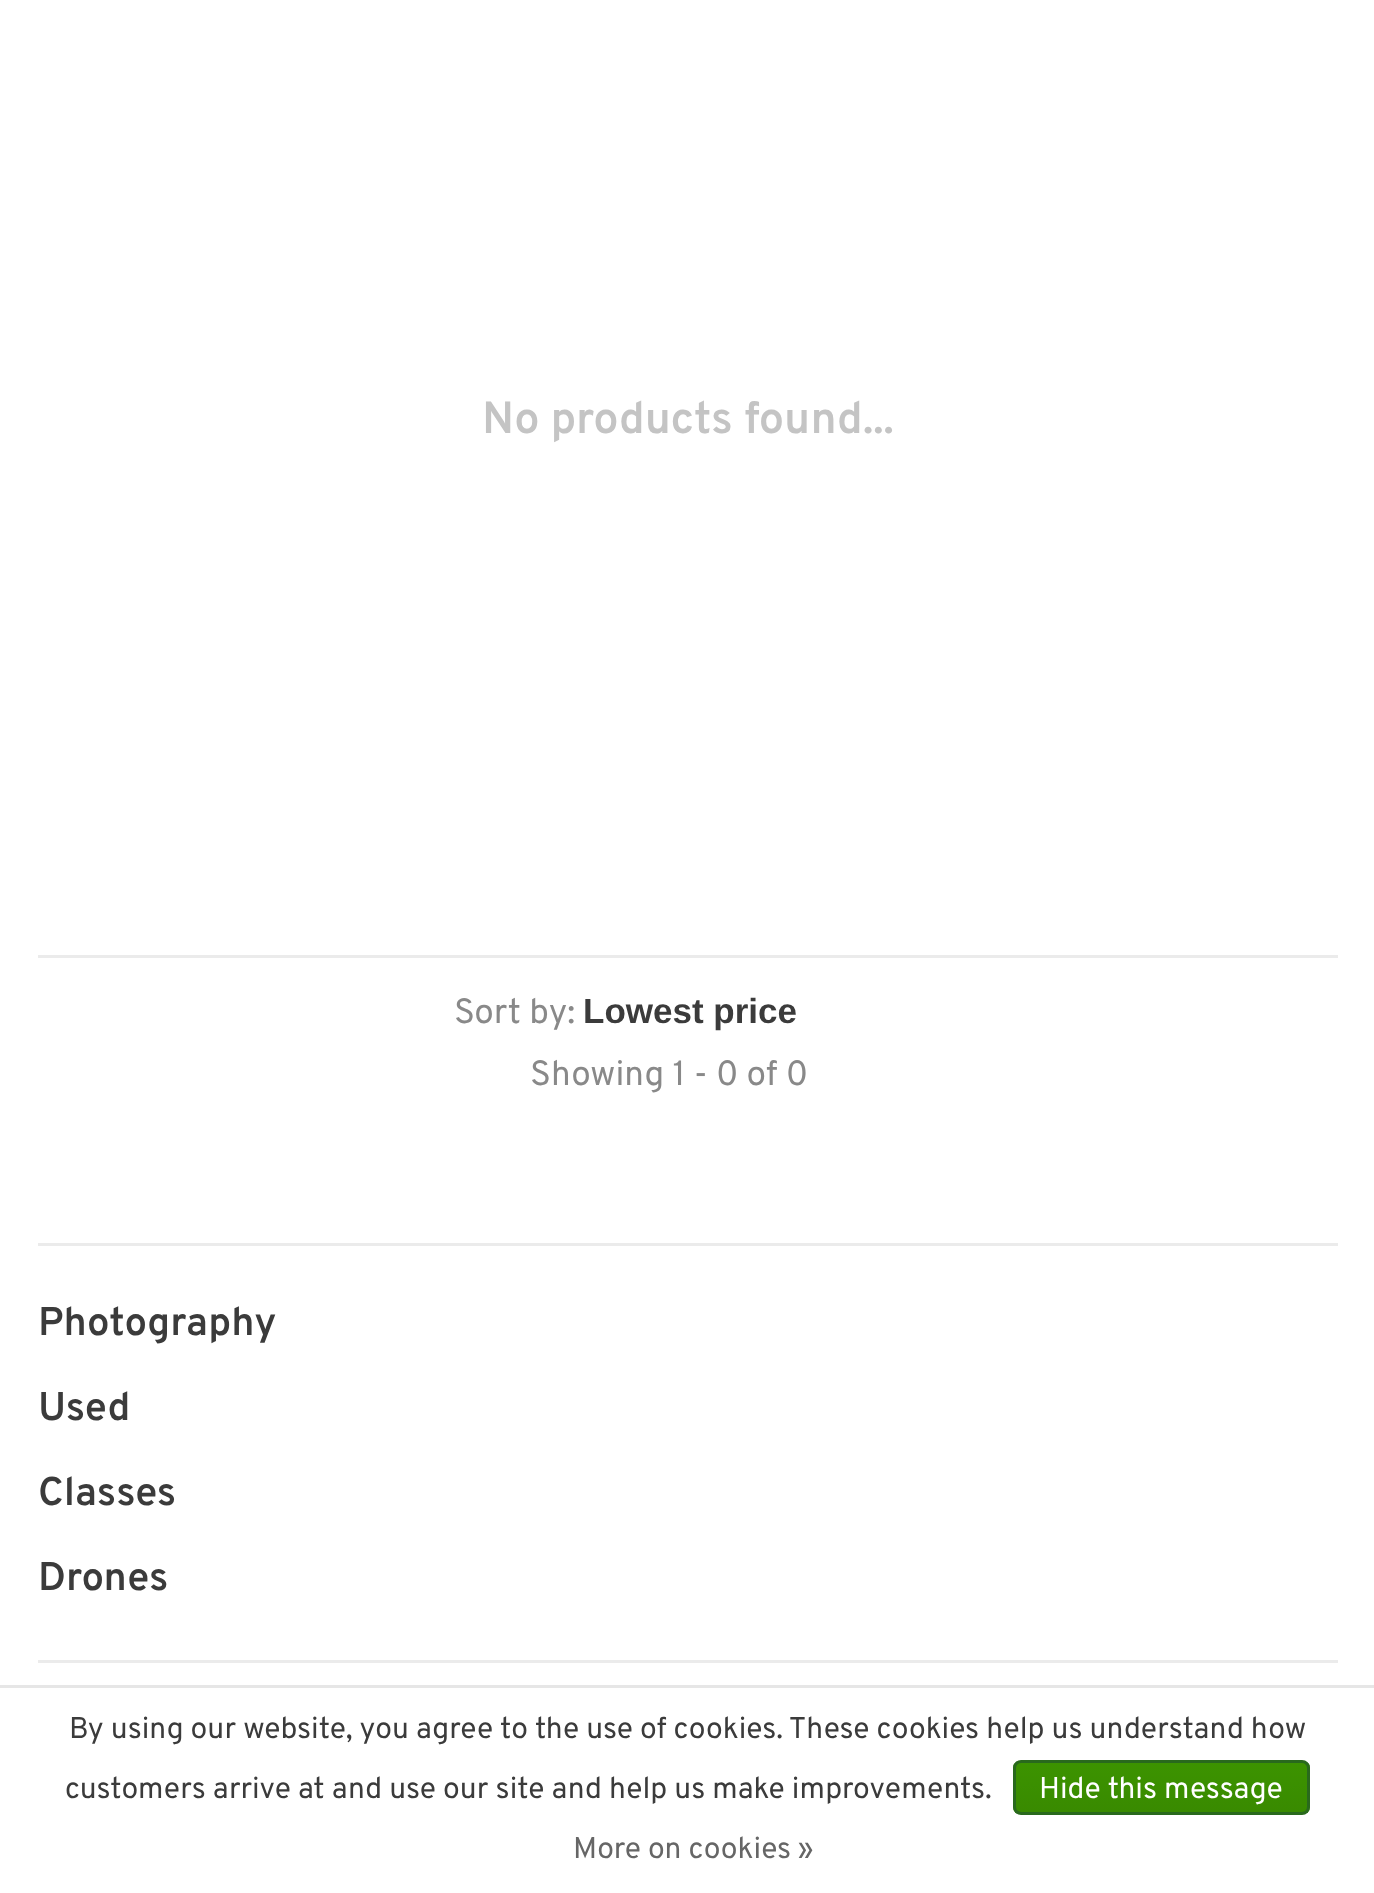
<svg xmlns="http://www.w3.org/2000/svg" width="1374" height="1893" viewBox="0 0 1374 1893">
  <defs>
    <clipPath id="clip1"><rect x="1013" y="1760" width="297" height="55" rx="8"/></clipPath>
    <linearGradient id="g1" gradientUnits="userSpaceOnUse" x1="1161" y1="1763" x2="1161" y2="1813"><stop offset="0" stop-color="#3c9300"/><stop offset="1" stop-color="#398a00"/></linearGradient>
  </defs>
  <rect width="100%" height="100%" fill="#ffffff"/>
  <text x="482" y="433" font-family="Overpass" font-size="45" font-weight="600" fill="#c4c4c4">No products found...</text>
  <rect x="38" y="955" width="1300" height="3" fill="#ebebeb"/>
  <text x="454" y="1023" font-family="Overpass" font-size="35" fill="#898989">Sort by:</text>
  <text x="583" y="1023" font-family="Liberation Sans" font-size="35" font-weight="bold" fill="#3b3b3b">Lowest price</text>
  <text x="530" y="1085" font-family="Overpass" font-size="35" fill="#898989">Showing 1 - 0 of 0</text>
  <rect x="38" y="1243" width="1300" height="3" fill="#ebebeb"/>
  <rect x="38" y="1660" width="1300" height="3" fill="#ebebeb"/>
  <text x="38" y="1335" font-family="Overpass" font-size="40" font-weight="600" fill="#3b3b3b">Photography</text>
  <text x="38" y="1420" font-family="Overpass" font-size="40" font-weight="600" fill="#3b3b3b">Used</text>
  <text x="38" y="1505" font-family="Overpass" font-size="40" font-weight="600" fill="#3b3b3b">Classes</text>
  <text x="38" y="1590" font-family="Overpass" font-size="40" font-weight="600" fill="#3b3b3b">Drones</text>
  <rect x="0" y="1685" width="1374" height="3" fill="#e6e6e6"/>
  <text x="69" y="1738" font-family="Overpass" font-size="30" fill="#3b3b3b">By using our website, you agree to the use of cookies. These cookies help us understand how</text>
  <text x="65" y="1798" font-family="Overpass" font-size="30" fill="#3b3b3b">customers arrive at and use our site and help us make improvements.</text>
  <g clip-path="url(#clip1)">
    <rect x="1013" y="1763" width="297" height="50" fill="url(#g1)"/>
  </g>
  <rect x="1014.5" y="1761.5" width="294" height="52" rx="6.5" fill="none" stroke="#29691d" stroke-width="3"/>
  <text x="1039" y="1798" font-family="Overpass" font-size="30" fill="#ffffff">Hide this message</text>
  <text x="573" y="1858" font-family="Overpass" font-size="30" fill="#666666">More on cookies »</text>
</svg>
